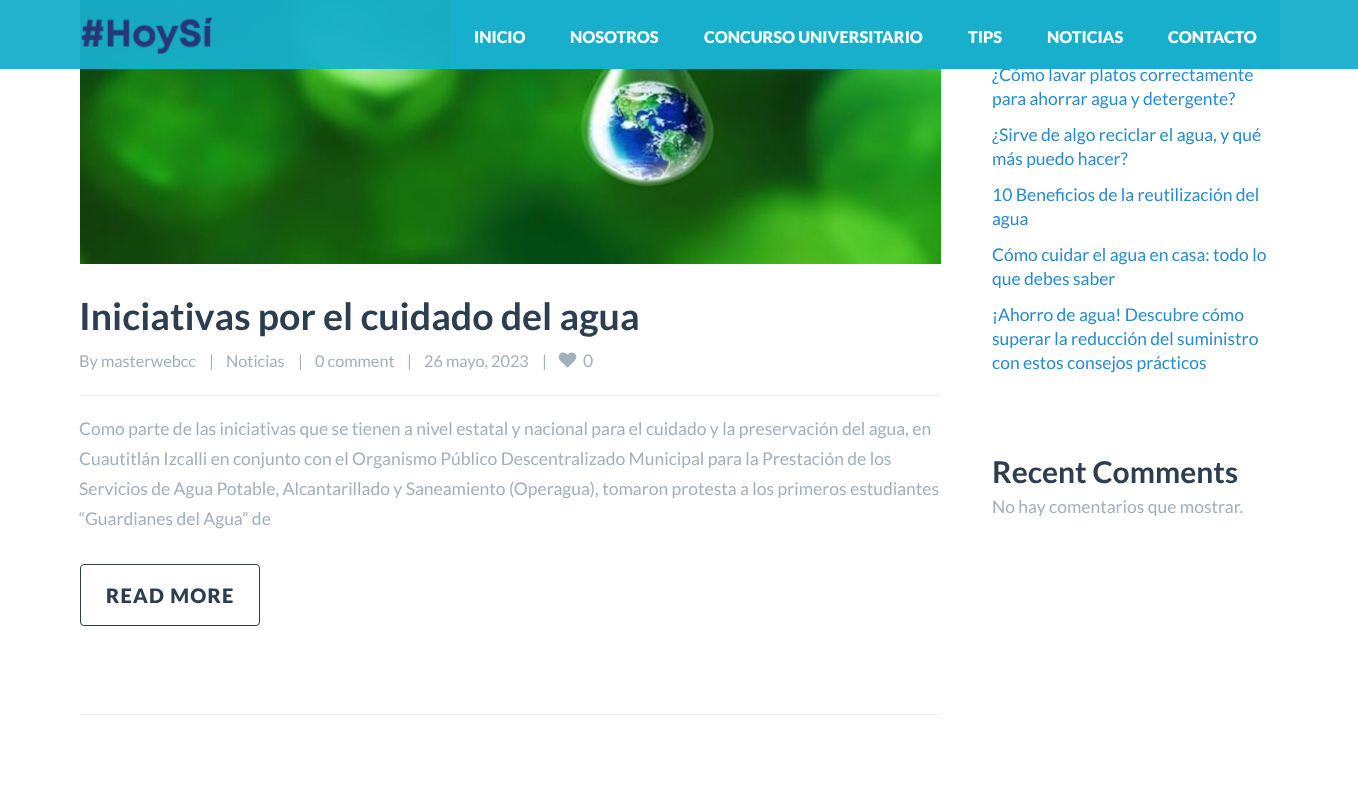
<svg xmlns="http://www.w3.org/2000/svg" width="1358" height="797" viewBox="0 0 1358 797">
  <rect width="100%" height="100%" fill="#ffffff"/>
  <image x="80" y="0" width="862" height="264" href="img2.png"/>
  <text x="992" y="81" font-family="Lato" font-size="17.5" fill="#288bd0">¿Cómo lavar platos correctamente</text>
  <rect x="0" y="0" width="1358" height="69" fill="#17afcb" fill-opacity="0.95"/>
  <image x="81" y="17" width="132" height="37" href="img1.png"/>
  <rect x="451" y="0" width="829" height="69" fill="#17afcb" fill-opacity="0.95"/>
  <text x="474" y="43" font-family="Lato" font-size="16.25" font-weight="900" fill="#f3fbfc">INICIO</text>
  <text x="570" y="43" font-family="Lato" font-size="16.25" font-weight="900" fill="#f3fbfc">NOSOTROS</text>
  <text x="704" y="43" font-family="Lato" font-size="16.25" font-weight="900" fill="#f3fbfc">CONCURSO UNIVERSITARIO</text>
  <text x="968" y="43" font-family="Lato" font-size="16.25" font-weight="900" fill="#f3fbfc">TIPS</text>
  <text x="1047" y="43" font-family="Lato" font-size="16.25" font-weight="900" fill="#f3fbfc">NOTICIAS</text>
  <text x="1168" y="43" font-family="Lato" font-size="16.25" font-weight="900" fill="#ffffff">CONTACTO</text>
  <text x="79" y="330" font-family="Lato" font-size="37.5" font-weight="bold" fill="#2c3e50">Iniciativas por el cuidado del agua</text>
  <rect x="80" y="395" width="861" height="1" fill="#ecf0f1"/>
  <text x="79" y="367" font-family="Lato" font-size="16.25" fill="#a1b1bc">By masterwebcc</text>
  <text x="209" y="367" font-family="Lato" font-size="16.25" fill="#a1b1bc">|</text>
  <text x="226" y="367" font-family="Lato" font-size="16.25" fill="#a1b1bc">Noticias</text>
  <text x="298" y="367" font-family="Lato" font-size="16.25" fill="#a1b1bc">|</text>
  <text x="315" y="367" font-family="Lato" font-size="16.25" fill="#a1b1bc">0 comment</text>
  <text x="407" y="367" font-family="Lato" font-size="16.25" fill="#a1b1bc">|</text>
  <text x="424" y="367" font-family="Lato" font-size="16.25" fill="#a1b1bc">26 mayo, 2023</text>
  <text x="542" y="367" font-family="Lato" font-size="16.25" fill="#a1b1bc">|</text>
  <image x="558" y="352" width="19" height="16" href="img3.png"/>
  <text x="583" y="367" font-family="Lato" font-size="17.5" fill="#a1b1bc">0</text>
  <text x="79" y="435" font-family="Lato" font-size="17.5" fill="#a1b1bc">Como parte de las iniciativas que se tienen a nivel estatal y nacional para el cuidado y la preservación del agua, en</text>
  <text x="79" y="465" font-family="Lato" font-size="17.5" fill="#a1b1bc">Cuautitlán Izcalli en conjunto con el Organismo Público Descentralizado Municipal para la Prestación de los</text>
  <text x="79" y="495" font-family="Lato" font-size="17.5" fill="#a1b1bc">Servicios de Agua Potable, Alcantarillado y Saneamiento (Operagua), tomaron protesta a los primeros estudiantes</text>
  <text x="79" y="525" font-family="Lato" font-size="17.5" fill="#a1b1bc">“Guardianes del Agua” de</text>
  <rect x="80.5" y="564.5" width="179" height="61" rx="3.5" fill="none" stroke="#2c3e50"/>
  <text x="106" y="603" font-family="Lato" font-size="20" font-weight="900" letter-spacing="1.25" fill="#2c3e50">READ MORE</text>
  <rect x="80" y="714" width="861" height="1" fill="#ecf0f1"/>
  <text x="992" y="105" font-family="Lato" font-size="17.5" fill="#288bd0">para ahorrar agua y detergente?</text>
  <text x="992" y="141" font-family="Lato" font-size="17.5" fill="#288bd0">¿Sirve de algo reciclar el agua, y qué</text>
  <text x="992" y="165" font-family="Lato" font-size="17.5" fill="#288bd0">más puedo hacer?</text>
  <text x="992" y="201" font-family="Lato" font-size="17.5" fill="#288bd0">10 Beneficios de la reutilización del</text>
  <text x="992" y="225" font-family="Lato" font-size="17.5" fill="#288bd0">agua</text>
  <text x="992" y="261" font-family="Lato" font-size="17.5" fill="#288bd0">Cómo cuidar el agua en casa: todo lo</text>
  <text x="992" y="285" font-family="Lato" font-size="17.5" fill="#288bd0">que debes saber</text>
  <text x="992" y="321" font-family="Lato" font-size="17.5" fill="#288bd0">¡Ahorro de agua! Descubre cómo</text>
  <text x="992" y="345" font-family="Lato" font-size="17.5" fill="#288bd0">superar la reducción del suministro</text>
  <text x="992" y="369" font-family="Lato" font-size="17.5" fill="#288bd0">con estos consejos prácticos</text>
  <text x="992" y="483" font-family="Lato" font-size="30" font-weight="bold" fill="#2c3e50">Recent Comments</text>
  <text x="992" y="513" font-family="Lato" font-size="17.5" fill="#a1b1bc">No hay comentarios que mostrar.</text>
</svg>
